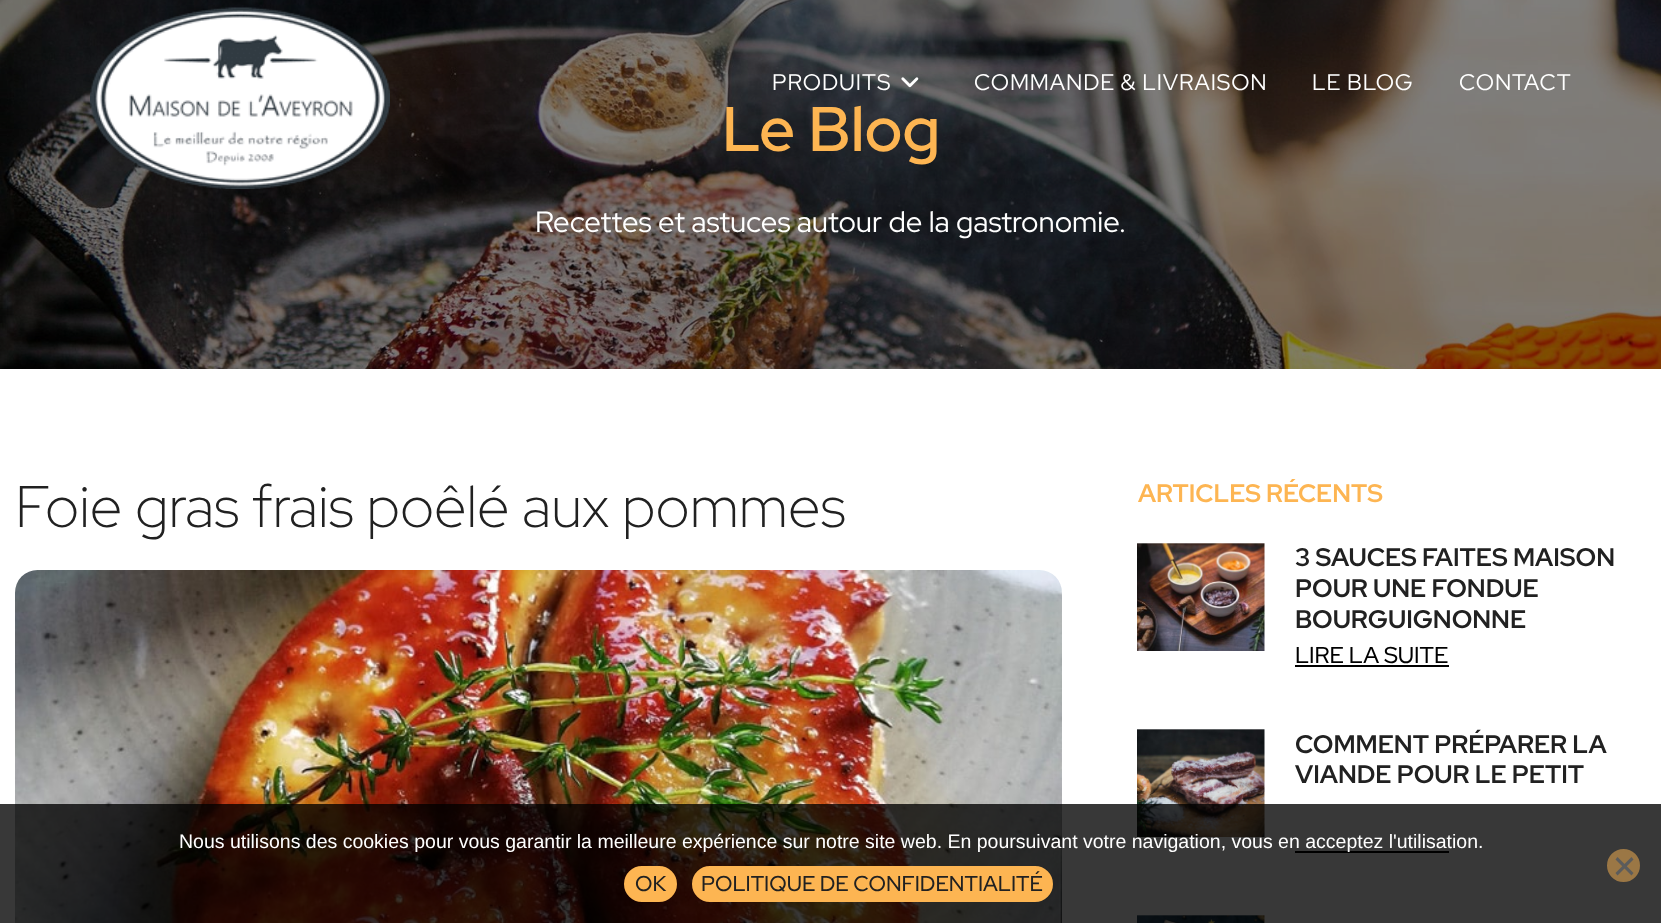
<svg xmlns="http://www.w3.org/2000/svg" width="1661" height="923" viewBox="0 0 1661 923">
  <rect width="100%" height="100%" fill="#ffffff"/>
  <image x="0" y="0" width="1661" height="369" href="img3.png"/>
  <image x="90" y="7" width="300" height="182" href="img1.png"/>
  <text x="772" y="90" font-family="Red Hat Display" font-size="22.5" letter-spacing="0.9" fill="#ffffff">PRODUITS</text>
  <image x="901" y="77" width="18" height="11" href="img2.png"/>
  <text x="974" y="90" font-family="Red Hat Display" font-size="22.5" letter-spacing="0.9" fill="#ffffff">COMMANDE &amp; LIVRAISON</text>
  <text x="1312" y="90" font-family="Red Hat Display" font-size="22.5" letter-spacing="0.9" fill="#ffffff">LE BLOG</text>
  <text x="1459" y="90" font-family="Red Hat Display" font-size="22.5" letter-spacing="0.9" fill="#ffffff">CONTACT</text>
  <text x="722" y="151" font-family="Red Hat Display" font-size="63" font-weight="600" fill="#fdb552">Le Blog</text>
  <text x="535" y="232" font-family="Red Hat Display" font-size="29.4" fill="#ffffff">Recettes et astuces autour de la gastronomie.</text>
  <text x="15" y="527" font-family="Red Hat Display" font-size="58.75" font-weight="300" fill="#212121">Foie gras frais poêlé aux pommes</text>
  <image x="15" y="570" width="1047" height="353" href="img4.png"/>
  <text x="1138" y="502" font-family="Red Hat Display" font-size="25.25" font-weight="bold" fill="#fdb552">ARTICLES RÉCENTS</text>
  <image x="1137" y="543" width="128" height="108" href="img5.png"/>
  <text x="1295" y="566" font-family="Red Hat Display" font-size="25.4" font-weight="bold" fill="#212121">3 SAUCES FAITES MAISON</text>
  <text x="1295" y="597" font-family="Red Hat Display" font-size="25.4" font-weight="bold" fill="#212121">POUR UNE FONDUE</text>
  <text x="1295" y="628" font-family="Red Hat Display" font-size="25.4" font-weight="bold" fill="#212121">BOURGUIGNONNE</text>
  <text x="1295" y="663" font-family="Red Hat Display" font-size="23" font-weight="500" fill="#000000">LIRE LA SUITE</text>
  <rect x="1295" y="665" width="154" height="2" fill="#000000"/>
  <image x="1137" y="729" width="128" height="108" href="img6.png"/>
  <text x="1295" y="753" font-family="Red Hat Display" font-size="25.4" font-weight="bold" fill="#212121">COMMENT PRÉPARER LA</text>
  <text x="1295" y="783" font-family="Red Hat Display" font-size="25.4" font-weight="bold" fill="#212121">VIANDE POUR LE PETIT</text>
  <rect x="1295" y="851" width="154" height="2" fill="#000000"/>
  <image x="1137" y="915" width="128" height="8" href="img7.png"/>
  <rect x="0" y="804" width="1661" height="119" fill="#000000" fill-opacity="0.78"/>
  <text x="179" y="848" font-family="Liberation Sans" font-size="19.5" fill="#ffffff">Nous utilisons des cookies pour vous garantir la meilleure expérience sur notre site web. En poursuivant votre navigation, vous en acceptez l'utilisation.</text>
  <rect x="625" y="867" width="51" height="34" rx="17" fill="#fdb552" stroke="#fdb552" stroke-width="2"/>
  <text x="635" y="891" font-family="Red Hat Display" font-size="21.5" font-weight="500" fill="#212121">OK</text>
  <rect x="693" y="867" width="359" height="34" rx="17" fill="#fdb552" stroke="#fdb552" stroke-width="2"/>
  <text x="701" y="891" font-family="Red Hat Display" font-size="21.5" font-weight="500" fill="#212121">POLITIQUE DE CONFIDENTIALITÉ</text>
  <circle cx="1623.5" cy="865.5" r="15.5" fill="#9b7745" stroke="#9b7745" stroke-width="2"/>
  <path d="M1631.5 857L1633.5 859.5L1617.5 875.5L1615.5 873Z" fill="#5c5c5c"/>
  <path d="M1615.5 859.5L1617.5 857L1633.5 873L1631.5 875.5Z" fill="#5c5c5c"/>
</svg>
